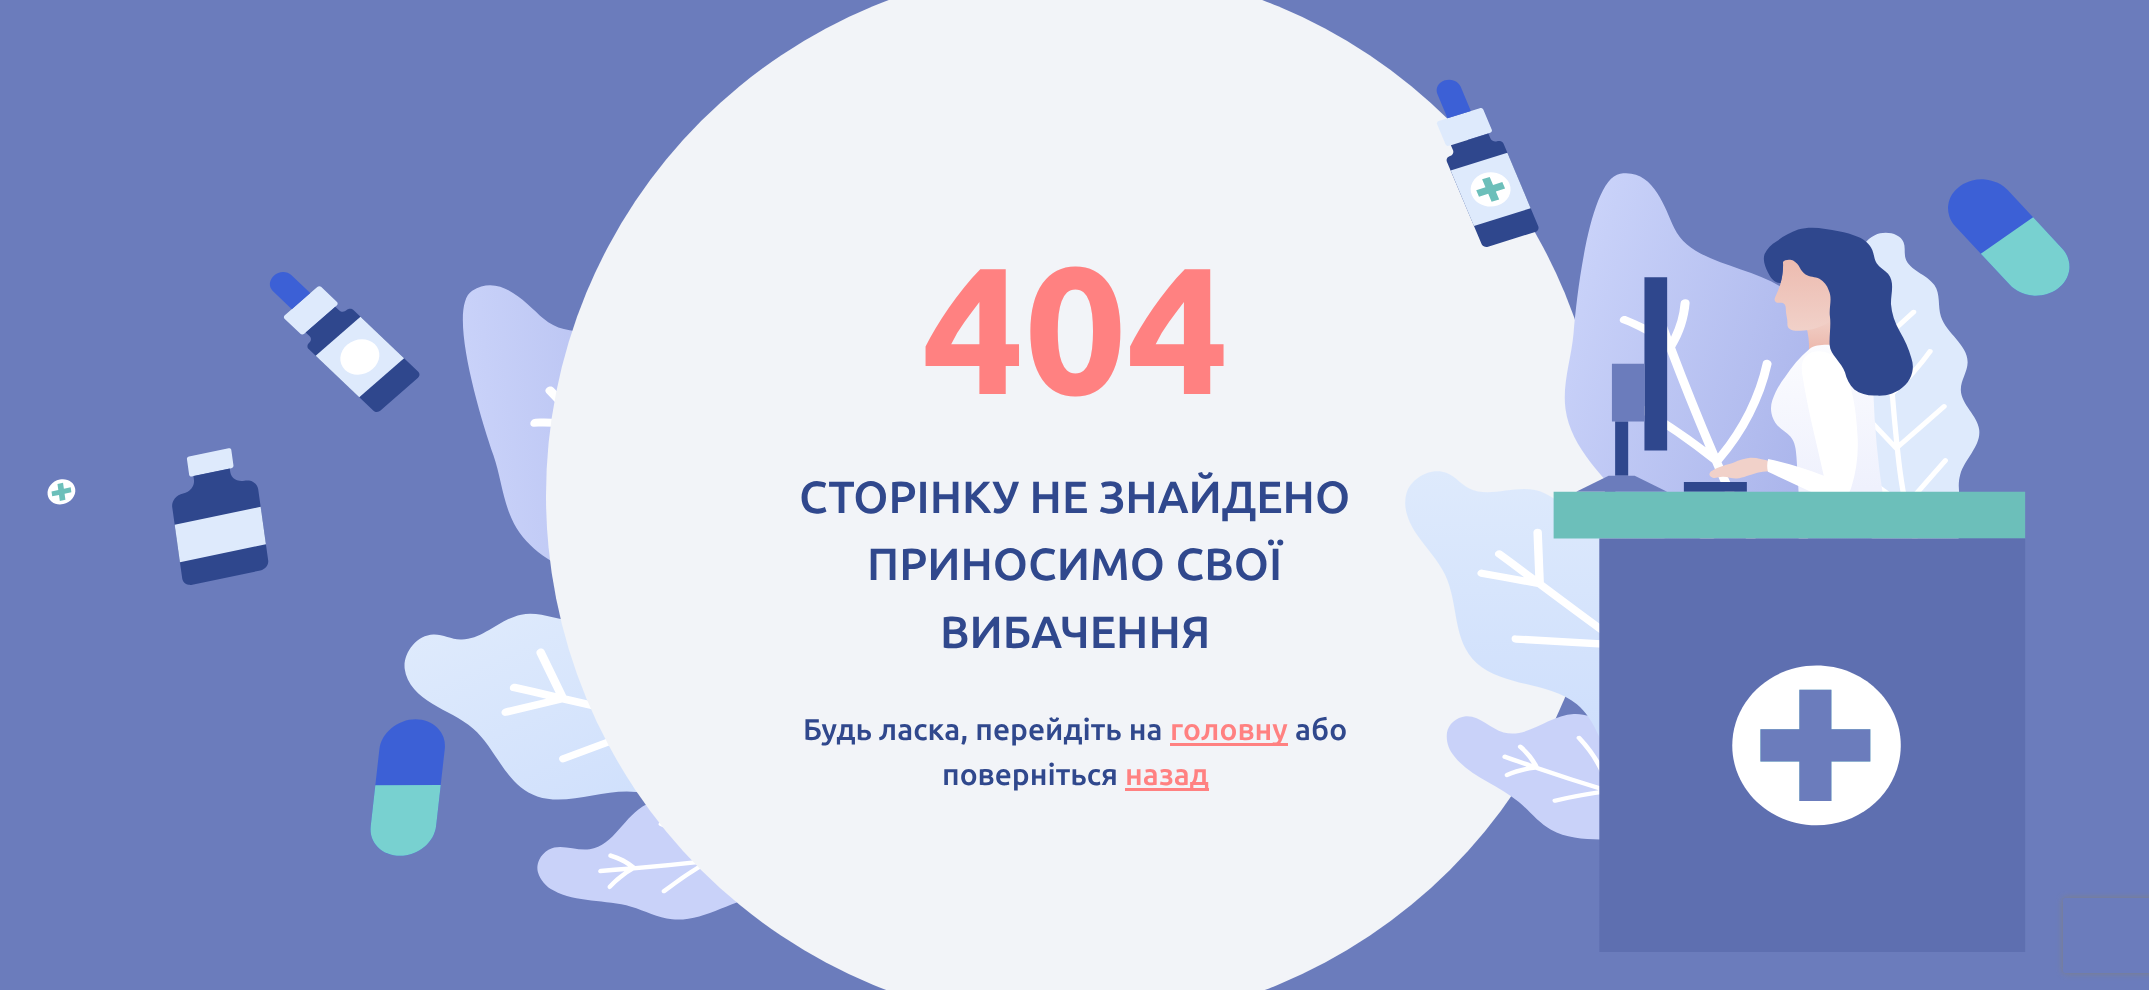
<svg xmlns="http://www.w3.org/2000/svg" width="2149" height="990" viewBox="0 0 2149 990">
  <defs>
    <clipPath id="clip1"><path d="M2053 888H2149V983H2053ZM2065.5 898H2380.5C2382 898 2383 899 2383 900.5V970.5C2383 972 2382 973 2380.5 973H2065.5C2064 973 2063 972 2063 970.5V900.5C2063 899 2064 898 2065.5 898Z" clip-rule="evenodd"/></clipPath>
    <filter id="blur1" x="-50%" y="-200%" width="200%" height="500%"><feGaussianBlur stdDeviation="3"/></filter>
  </defs>
  <rect width="100%" height="100%" fill="#6b7cbc"/>
  <image x="47" y="272" width="691" height="648" href="img1.png"/>
  <circle cx="1075.5" cy="495.5" r="529.5" fill="#f2f4f8"/>
  <text x="922" y="394" font-family="Ubuntu" font-size="180" font-weight="bold" fill="#ff8181">404</text>
  <text x="799" y="513" font-family="Ubuntu" font-size="45" font-weight="500" fill="#30488d">СТОРІНКУ НЕ ЗНАЙДЕНО</text>
  <text x="867" y="580" font-family="Ubuntu" font-size="45" font-weight="500" fill="#30488d">ПРИНОСИМО СВОЇ</text>
  <text x="940" y="648" font-family="Ubuntu" font-size="45" font-weight="500" fill="#30488d">ВИБАЧЕННЯ</text>
  <text x="803" y="740" font-family="Ubuntu" font-size="30" font-weight="500" fill="#30488d">Будь ласка, перейдіть на</text>
  <rect x="1170" y="743" width="118" height="3" fill="#ff8181"/>
  <text x="1170" y="740" font-family="Ubuntu" font-size="30" font-weight="500" fill="#ff8181">головну</text>
  <text x="1295" y="740" font-family="Ubuntu" font-size="30" font-weight="500" fill="#30488d">або</text>
  <text x="942" y="785" font-family="Ubuntu" font-size="30" font-weight="500" fill="#30488d">поверніться</text>
  <rect x="1125" y="788" width="84" height="3" fill="#ff8181"/>
  <text x="1125" y="785" font-family="Ubuntu" font-size="30" font-weight="500" fill="#ff8181">назад</text>
  <g clip-path="url(#clip1)">
    <rect x="2063" y="898" width="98" height="75" rx="2.5" fill="#808080" filter="url(#blur1)"/>
  </g>
  <image x="1405" y="79" width="665" height="873" href="img2.png"/>
</svg>
